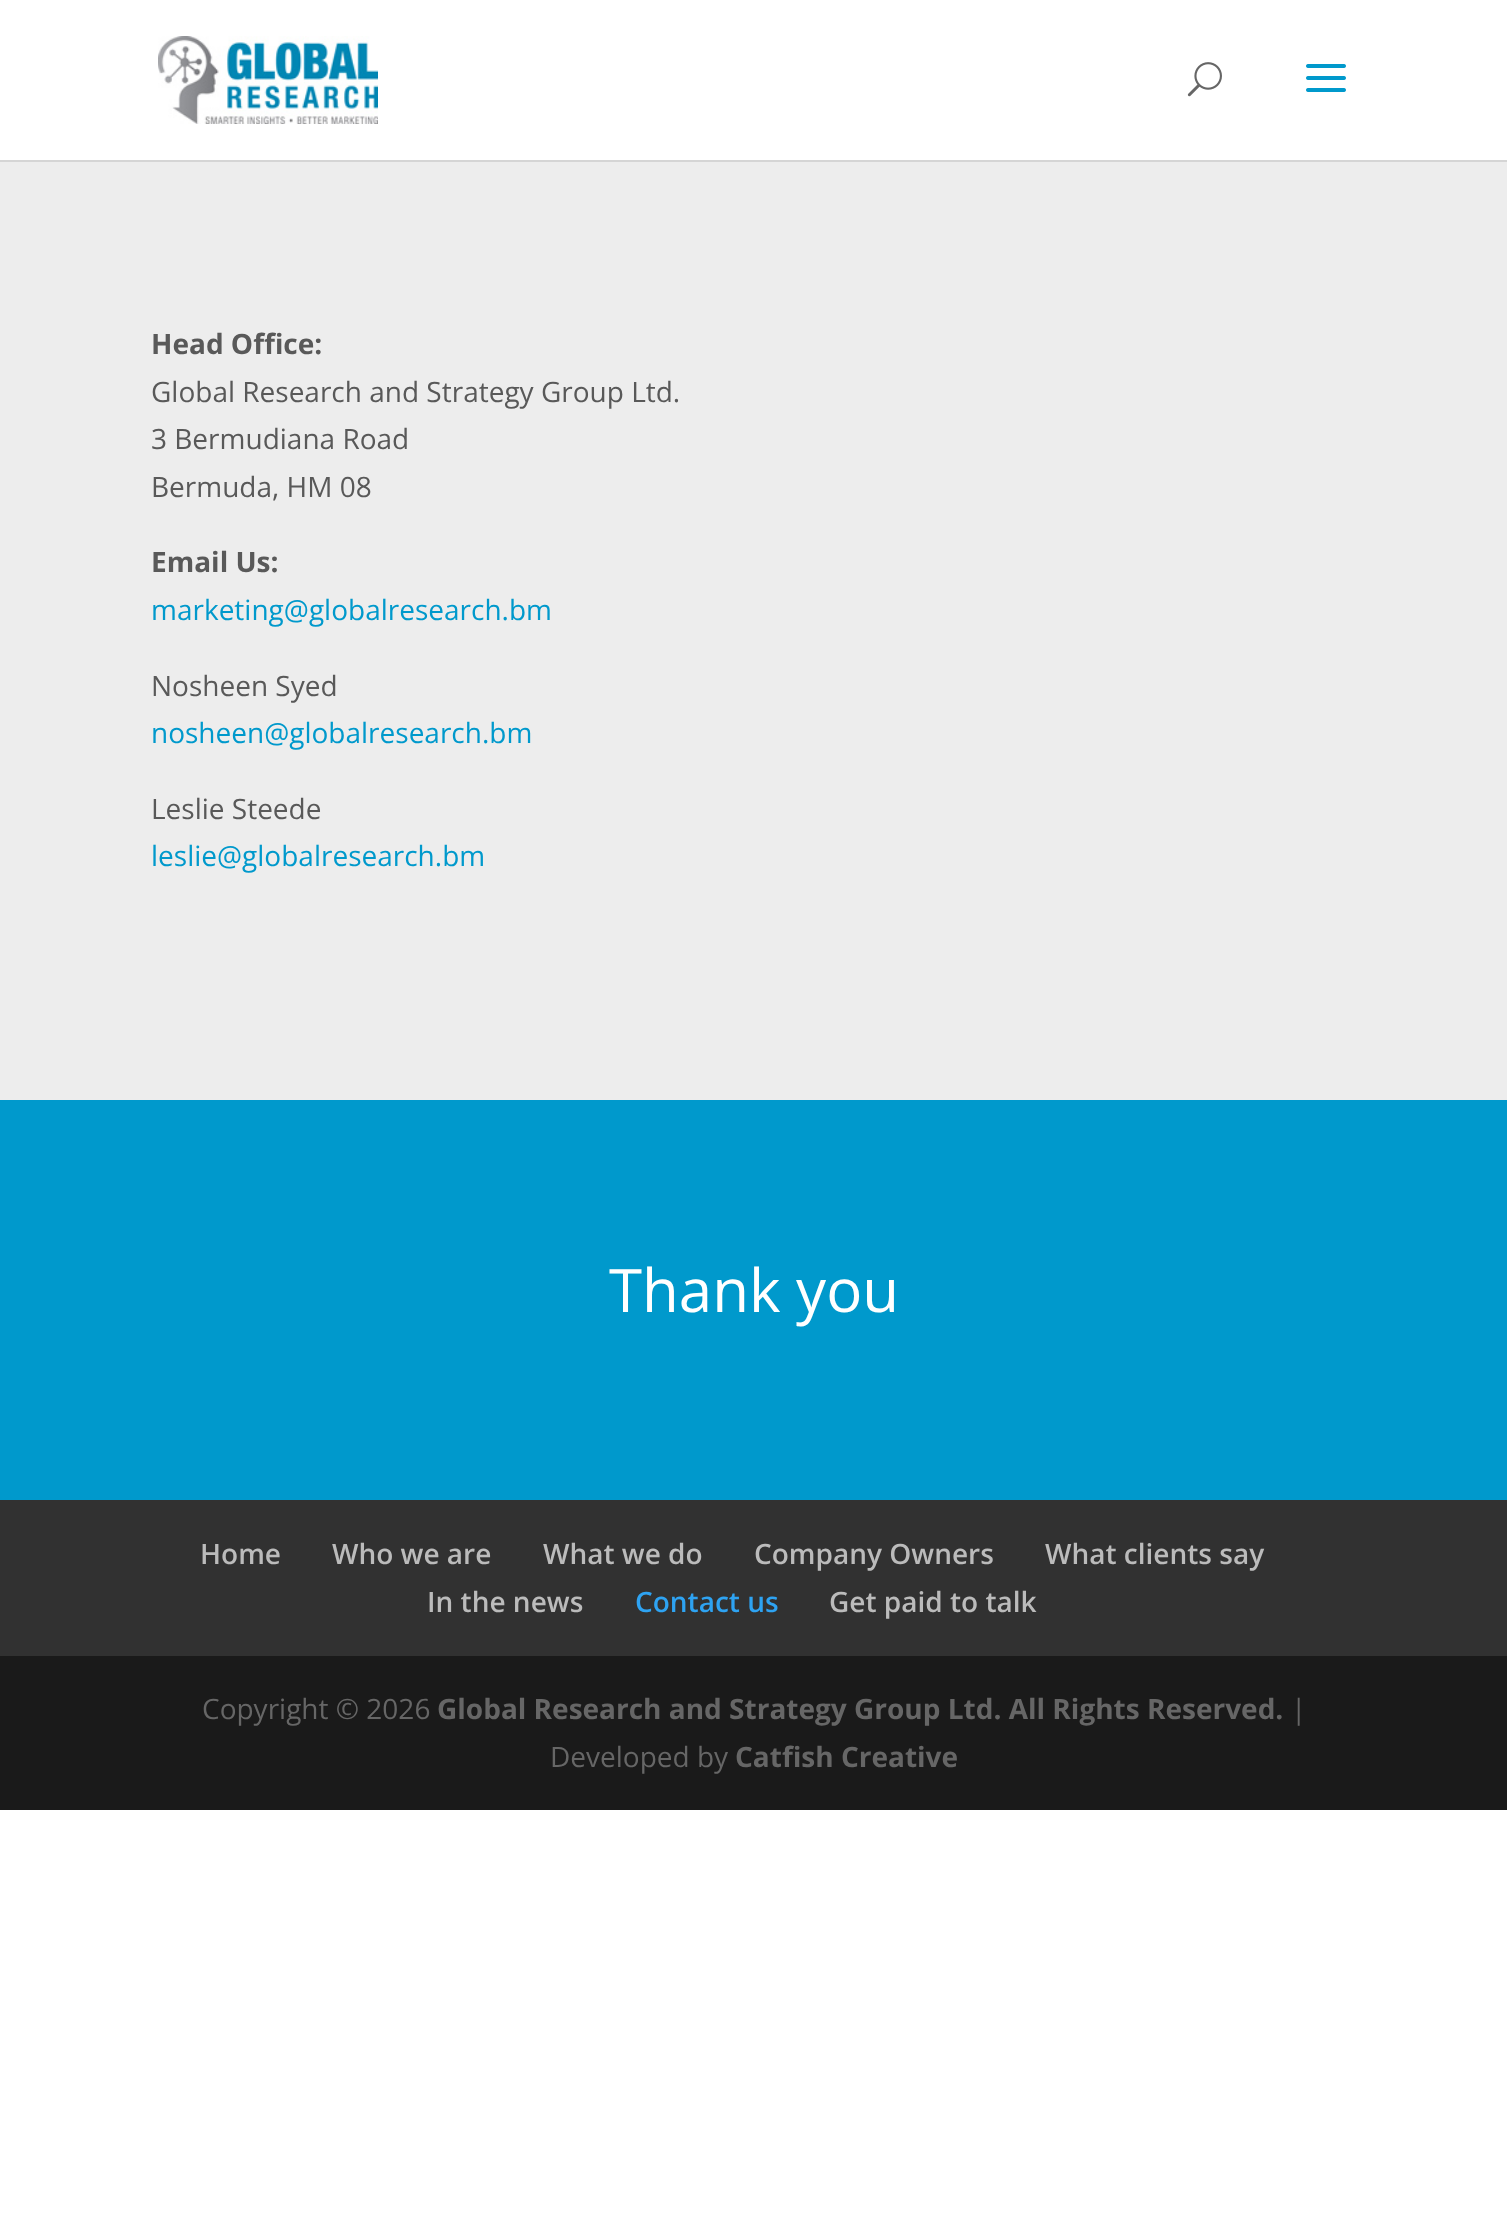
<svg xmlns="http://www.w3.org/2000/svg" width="1507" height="2234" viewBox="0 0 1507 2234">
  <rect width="100%" height="100%" fill="#ffffff"/>
  <rect x="0" y="160" width="1507" height="2" fill="#d5d5d5"/>
  <image x="158" y="36" width="220" height="88" href="img1.png"/>
  <image x="1187" y="62" width="35" height="35" href="img2.png"/>
  <image x="1306" y="64" width="40" height="28" href="img3.png"/>
  <rect x="0" y="162" width="1507" height="938" fill="#ededed"/>
  <text x="151" y="354" font-family="Open Sans" font-size="28" font-weight="bold" fill="#595959">Head Office:</text>
  <text x="151" y="402" font-family="Open Sans" font-size="28" fill="#595959">Global Research and Strategy Group Ltd.</text>
  <text x="151" y="449" font-family="Open Sans" font-size="28" fill="#595959">3 Bermudiana Road</text>
  <text x="151" y="497" font-family="Open Sans" font-size="28" fill="#595959">Bermuda, HM 08</text>
  <text x="151" y="572" font-family="Open Sans" font-size="28" font-weight="bold" fill="#595959">Email Us:</text>
  <text x="151" y="620" font-family="Open Sans" font-size="28" fill="#0099cc">marketing@globalresearch.bm</text>
  <text x="151" y="696" font-family="Open Sans" font-size="28" fill="#595959">Nosheen Syed</text>
  <text x="151" y="743" font-family="Open Sans" font-size="28" fill="#0099cc">nosheen@globalresearch.bm</text>
  <text x="151" y="819" font-family="Open Sans" font-size="28" fill="#595959">Leslie Steede</text>
  <text x="151" y="866" font-family="Open Sans" font-size="28" fill="#0099cc">leslie@globalresearch.bm</text>
  <rect x="0" y="1100" width="1507" height="400" fill="#0099cc"/>
  <text x="609" y="1312" font-family="Open Sans" font-size="60" fill="#ffffff">Thank you</text>
  <rect x="0" y="1500" width="1507" height="156" fill="#313131"/>
  <text x="200" y="1564" font-family="Open Sans" font-size="28" font-weight="600" fill="#bbbbbb">Home</text>
  <text x="332" y="1564" font-family="Open Sans" font-size="28" font-weight="600" fill="#bbbbbb">Who we are</text>
  <text x="543" y="1564" font-family="Open Sans" font-size="28" font-weight="600" fill="#bbbbbb">What we do</text>
  <text x="754" y="1564" font-family="Open Sans" font-size="28" font-weight="600" fill="#bbbbbb">Company Owners</text>
  <text x="1045" y="1564" font-family="Open Sans" font-size="28" font-weight="600" fill="#bbbbbb">What clients say</text>
  <text x="427" y="1612" font-family="Open Sans" font-size="28" font-weight="600" fill="#bbbbbb">In the news</text>
  <text x="635" y="1612" font-family="Open Sans" font-size="28" font-weight="600" fill="#2ea3f2">Contact us</text>
  <text x="829" y="1612" font-family="Open Sans" font-size="28" font-weight="600" fill="#bbbbbb">Get paid to talk</text>
  <rect x="0" y="1656" width="1507" height="154" fill="#1a1a1a"/>
  <text x="202" y="1719" font-family="Open Sans" font-size="28" fill="#666666">Copyright © 2026</text>
  <text x="437" y="1719" font-family="Open Sans" font-size="28" font-weight="bold" fill="#666666">Global Research and Strategy Group Ltd. All Rights Reserved.</text>
  <text x="1291" y="1719" font-family="Open Sans" font-size="28" fill="#666666">|</text>
  <text x="550" y="1767" font-family="Open Sans" font-size="28" fill="#666666">Developed by</text>
  <text x="735" y="1767" font-family="Open Sans" font-size="28" font-weight="bold" fill="#666666">Catfish Creative</text>
</svg>
